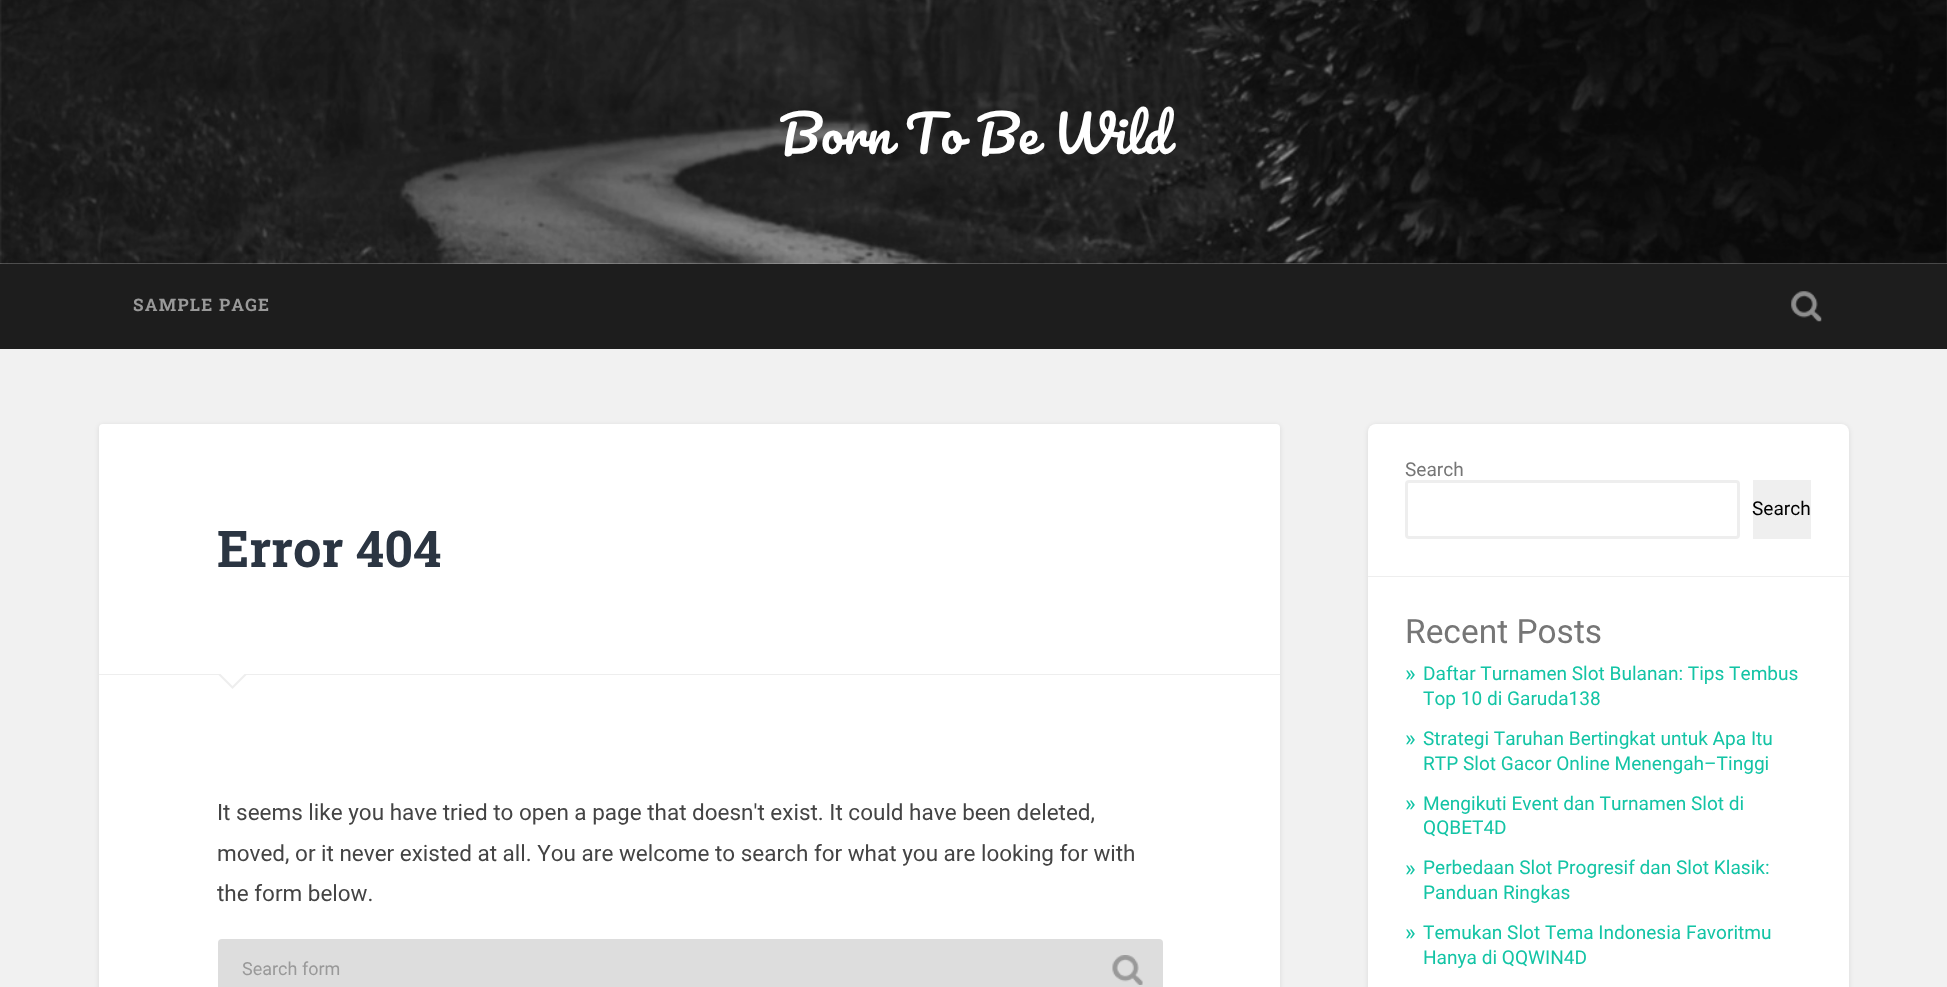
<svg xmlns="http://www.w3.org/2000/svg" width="1947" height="987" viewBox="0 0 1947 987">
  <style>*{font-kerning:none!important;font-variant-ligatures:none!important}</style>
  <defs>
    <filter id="blur1" x="-50%" y="-200%" width="200%" height="500%"><feGaussianBlur stdDeviation="2.5"/></filter>
  </defs>
  <rect width="100%" height="100%" fill="#f1f1f1"/>
  <image x="0" y="0" width="1947" height="264" href="img1.png"/>
  <text x="779" y="154" font-family="Pacifico" font-size="50.5" fill="#ffffff">Born To Be</text>
  <text x="1053" y="154" font-family="Pacifico" font-size="50.5" fill="#ffffff">Wild</text>
  <rect x="0" y="264" width="1947" height="85" fill="#1d1d1d"/>
  <text x="133" y="311" font-family="Roboto Slab" font-size="17.25" font-weight="bold" letter-spacing="1.25" fill="#999999">SAMPLE PAGE</text>
  <image x="1791" y="291" width="31" height="31" href="img2.png"/>
  <rect x="99" y="425" width="1181" height="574" rx="4" fill="#000000" fill-opacity="0.1" filter="url(#blur1)"/>
  <rect x="99" y="424" width="1181" height="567" rx="4" fill="#ffffff"/>
  <rect x="99" y="674" width="1181" height="1" fill="#eeeeee"/>
  <text x="217" y="567" font-family="Roboto Slab" font-size="50.5" font-weight="bold" fill="#2b3542">Error 404</text>
  <path d="M217.5 674H247.5L232.5 689Z" fill="#eeeeee"/>
  <path d="M219 672.5H246L232.5 686Z" fill="#ffffff"/>
  <text x="217" y="820" font-family="Roboto" font-size="22.5" fill="#444444">It seems like you have tried to open a page that doesn't exist. It could have been deleted,</text>
  <text x="217" y="861" font-family="Roboto" font-size="22.5" fill="#444444">moved, or it never existed at all. You are welcome to search for what you are looking for with</text>
  <text x="217" y="901" font-family="Roboto" font-size="22.5" fill="#444444">the form below.</text>
  <rect x="218" y="939" width="945" height="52" rx="4" fill="#dddddd"/>
  <text x="242" y="975" font-family="Roboto" font-size="18" fill="#999999">Search form</text>
  <image x="1112" y="955" width="31" height="30" href="img3.png"/>
  <rect x="1368" y="425" width="481" height="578" rx="8" fill="#000000" fill-opacity="0.1" filter="url(#blur1)"/>
  <rect x="1368" y="424" width="481" height="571" rx="8" fill="#ffffff"/>
  <text x="1405" y="476" font-family="Roboto" font-size="19.1" fill="#767676">Search</text>
  <rect x="1406.5" y="481.5" width="332" height="56" rx="2.5" fill="none" stroke="#eeeeee" stroke-width="3"/>
  <rect x="1753" y="480" width="58" height="59" fill="#efefef"/>
  <text x="1752" y="515" font-family="Roboto" font-size="19.1" fill="#000000">Search</text>
  <rect x="1368" y="576" width="481" height="1" fill="#eeeeee"/>
  <text x="1405" y="643" font-family="Roboto" font-size="33.5" fill="#767676">Recent Posts</text>
  <text x="1405" y="681" font-family="Roboto" font-size="22.5" fill="#13c4a5">»</text>
  <text x="1423" y="680" font-family="Roboto" font-size="19.1" fill="#13c4a5">Daftar Turnamen Slot Bulanan: Tips Tembus</text>
  <text x="1423" y="705" font-family="Roboto" font-size="19.1" fill="#13c4a5">Top 10 di Garuda138</text>
  <text x="1405" y="746" font-family="Roboto" font-size="22.5" fill="#13c4a5">»</text>
  <text x="1423" y="745" font-family="Roboto" font-size="19.1" fill="#13c4a5">Strategi Taruhan Bertingkat untuk Apa Itu</text>
  <text x="1423" y="770" font-family="Roboto" font-size="19.1" fill="#13c4a5">RTP Slot Gacor Online Menengah–Tinggi</text>
  <text x="1405" y="811" font-family="Roboto" font-size="22.5" fill="#13c4a5">»</text>
  <text x="1423" y="810" font-family="Roboto" font-size="19.1" fill="#13c4a5">Mengikuti Event dan Turnamen Slot di</text>
  <text x="1423" y="834" font-family="Roboto" font-size="19.1" fill="#13c4a5">QQBET4D</text>
  <text x="1405" y="876" font-family="Roboto" font-size="22.5" fill="#13c4a5">»</text>
  <text x="1423" y="874" font-family="Roboto" font-size="19.1" fill="#13c4a5">Perbedaan Slot Progresif dan Slot Klasik:</text>
  <text x="1423" y="899" font-family="Roboto" font-size="19.1" fill="#13c4a5">Panduan Ringkas</text>
  <text x="1405" y="940" font-family="Roboto" font-size="22.5" fill="#13c4a5">»</text>
  <text x="1423" y="939" font-family="Roboto" font-size="19.1" fill="#13c4a5">Temukan Slot Tema Indonesia Favoritmu</text>
  <text x="1423" y="964" font-family="Roboto" font-size="19.1" fill="#13c4a5">Hanya di QQWIN4D</text>
</svg>
